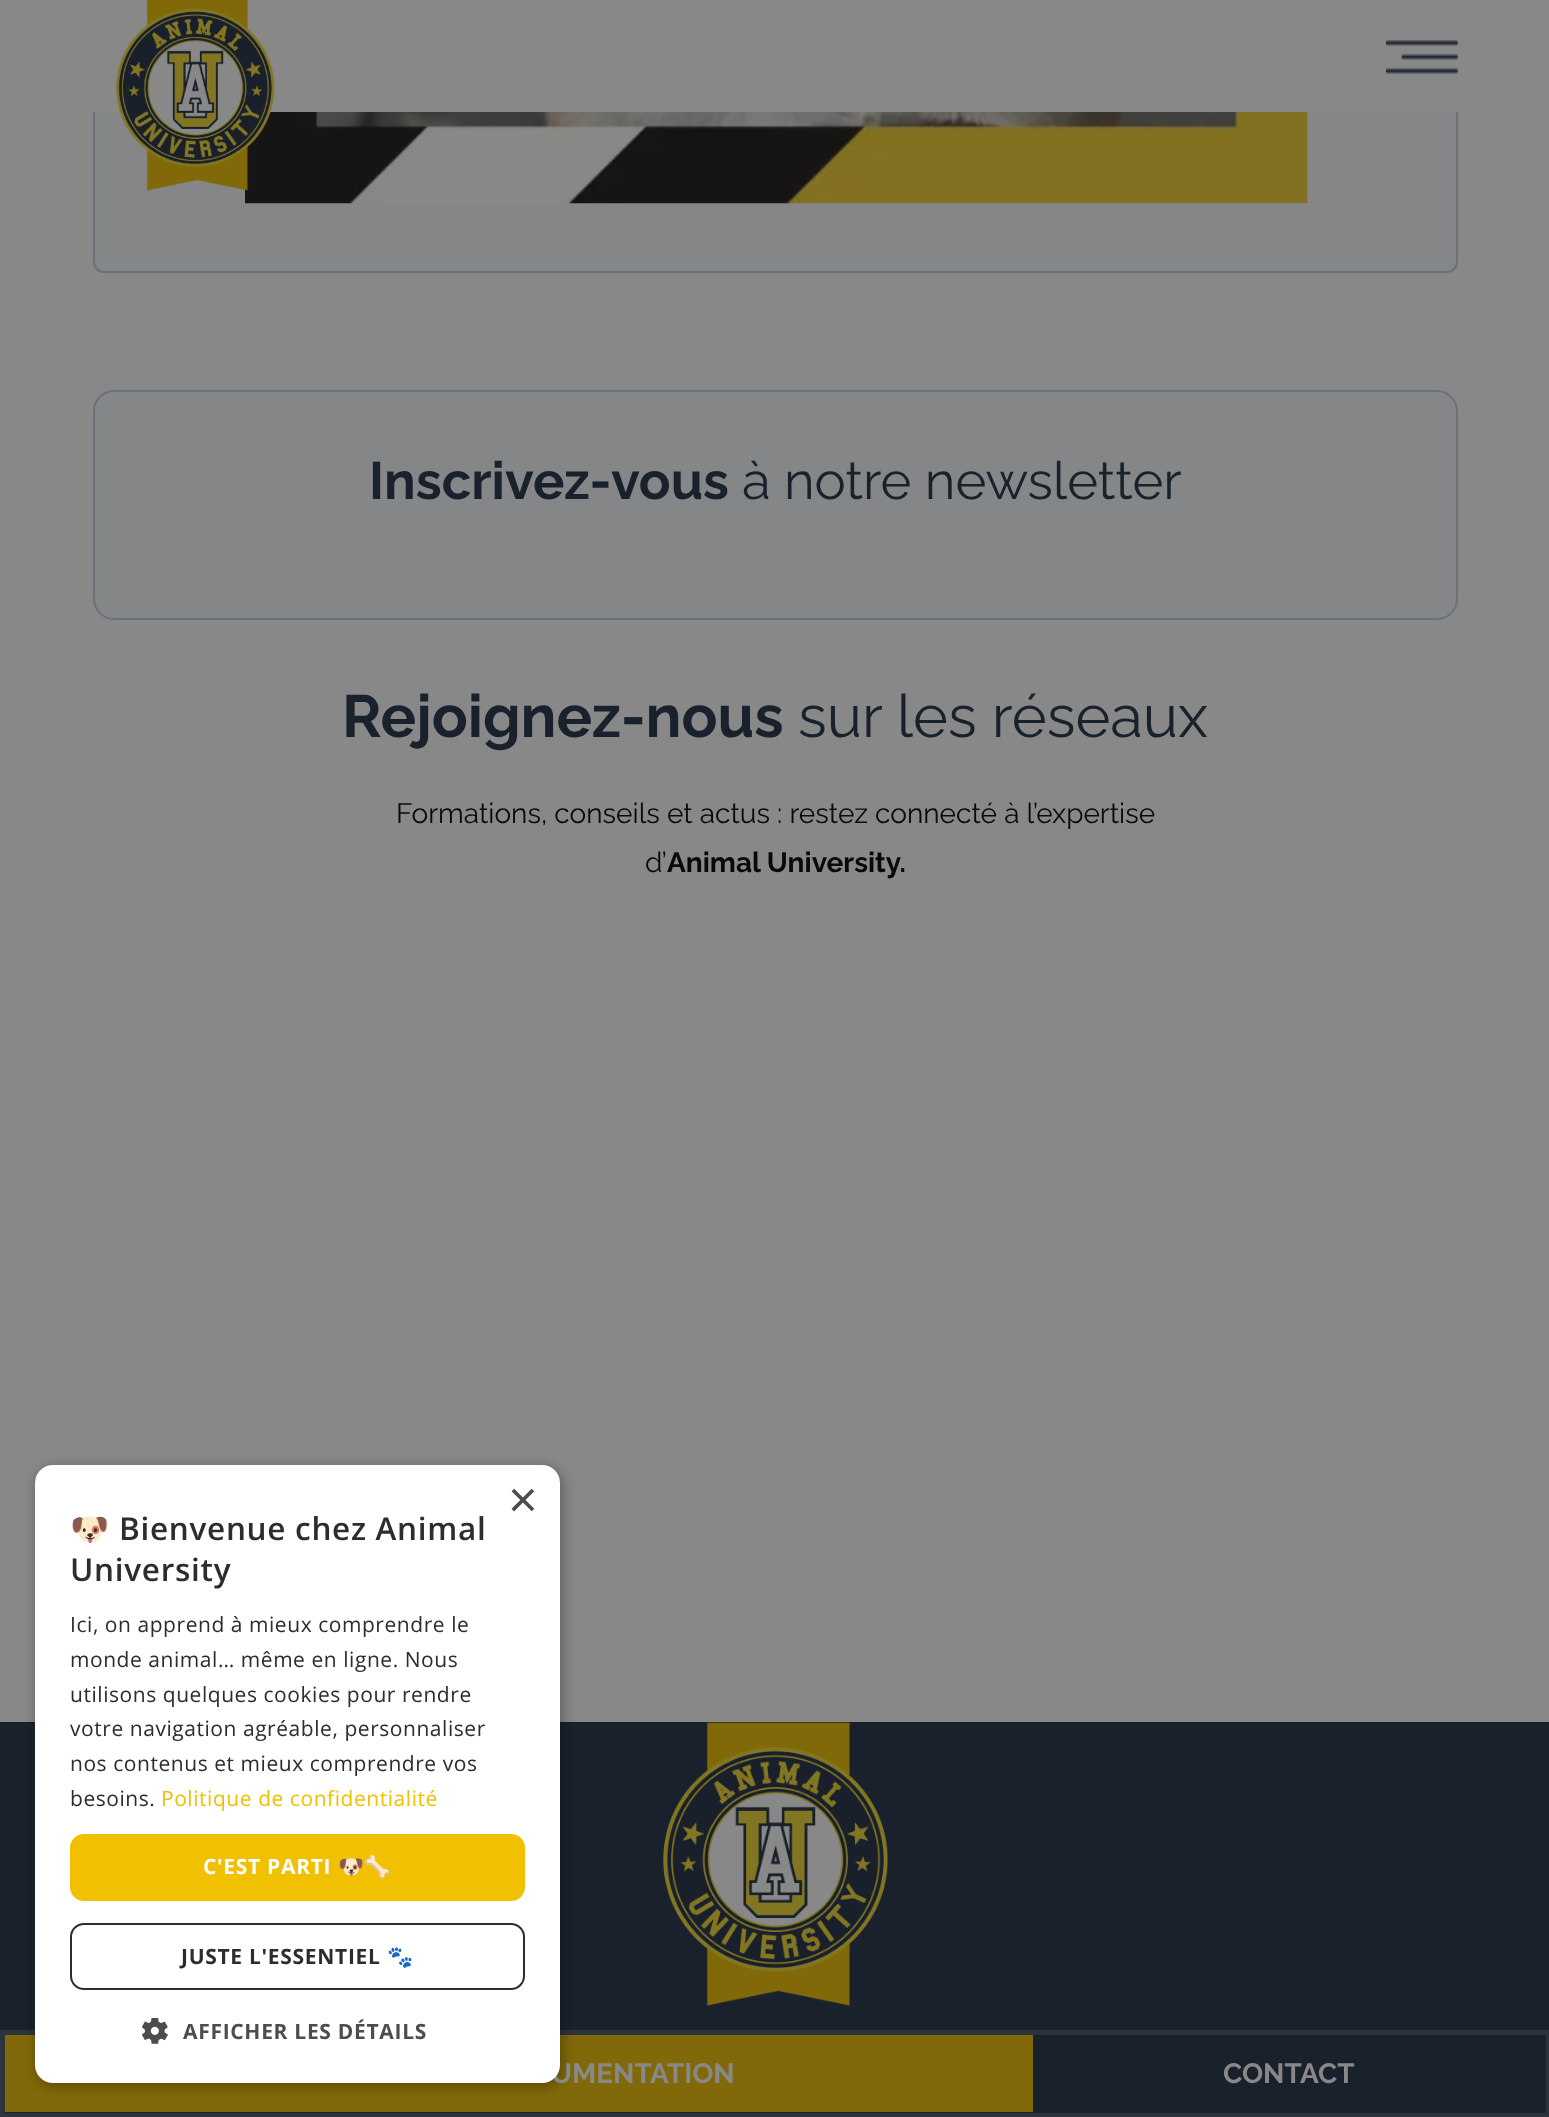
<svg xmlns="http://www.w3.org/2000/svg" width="1549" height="2117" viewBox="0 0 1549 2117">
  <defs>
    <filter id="blur1" x="-50%" y="-200%" width="200%" height="500%"><feGaussianBlur stdDeviation="7"/></filter>
  </defs>
  <rect width="100%" height="100%" fill="#888888"/>
  <rect x="94" y="-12" width="1363" height="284" rx="10" fill="#848688" stroke="#69717e" stroke-width="2"/>
  <image x="245" y="112" width="1063" height="92" href="img1.png"/>
  <rect x="93" y="0" width="1365" height="112" fill="#888888"/>
  <image x="116" y="0" width="159" height="191" href="img2.png"/>
  <image x="1386" y="40" width="72" height="34" href="img3.png"/>
  <rect x="0" y="1722" width="1549" height="391" fill="#19212c"/>
  <rect x="2.5" y="2032.5" width="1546" height="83" fill="none" stroke="#2d333c" stroke-width="5"/>
  <rect x="5" y="2035" width="1028" height="77" fill="#816909"/>
  <rect x="37" y="1468" width="525" height="618" rx="18" fill="#000000" fill-opacity="0.35" filter="url(#blur1)"/>
  <text x="551" y="2083" font-family="Raleway" font-size="28" font-weight="bold" fill="#888888">UMENTATION</text>
  <rect x="35" y="1465" width="525" height="618" rx="18" fill="#ffffff"/>
  <text x="508" y="1517" font-family="Liberation Sans" font-size="51" fill="#4d4d4d">×</text>
  <text x="70" y="1540" font-family="Noto Color Emoji" font-size="31.5" font-weight="bold" letter-spacing="0.7" fill="#2d2d2d">🐶</text>
  <text x="119" y="1540" font-family="Open Sans" font-size="31.5" font-weight="600" letter-spacing="0.7" fill="#2d2d2d">Bienvenue chez Animal</text>
  <text x="70" y="1581" font-family="Open Sans" font-size="31.5" font-weight="600" letter-spacing="0.7" fill="#2d2d2d">University</text>
  <text x="70" y="1632" font-family="Open Sans" font-size="21" letter-spacing="0.55" fill="#2d2d2d">Ici, on apprend à mieux comprendre le</text>
  <text x="70" y="1667" font-family="Open Sans" font-size="21" letter-spacing="0.55" fill="#2d2d2d">monde animal… même en ligne. Nous</text>
  <text x="70" y="1702" font-family="Open Sans" font-size="21" letter-spacing="0.55" fill="#2d2d2d">utilisons quelques cookies pour rendre</text>
  <text x="70" y="1736" font-family="Open Sans" font-size="21" letter-spacing="0.55" fill="#2d2d2d">votre navigation agréable, personnaliser</text>
  <text x="70" y="1771" font-family="Open Sans" font-size="21" letter-spacing="0.55" fill="#2d2d2d">nos contenus et mieux comprendre vos</text>
  <text x="70" y="1806" font-family="Open Sans" font-size="21" letter-spacing="0.55" fill="#2d2d2d">besoins.</text>
  <text x="161" y="1806" font-family="Open Sans" font-size="21" letter-spacing="0.55" fill="#f1c000">Politique de confidentialité</text>
  <rect x="70" y="1834" width="455" height="67" rx="14" fill="#f1c000"/>
  <text x="203" y="1874" font-family="Open Sans" font-size="21" font-weight="bold" letter-spacing="0.7" fill="#ffffff">C'EST PARTI</text>
  <text x="338" y="1874" font-family="Noto Color Emoji" font-size="21" font-weight="bold" letter-spacing="0.7" fill="#ffffff">🐶🦴</text>
  <rect x="71" y="1924" width="453" height="65" rx="13" fill="none" stroke="#2d2d2d" stroke-width="2"/>
  <text x="181" y="1964" font-family="Open Sans" font-size="21" font-weight="bold" letter-spacing="0.7" fill="#2d2d2d">JUSTE L'ESSENTIEL</text>
  <text x="387" y="1964" font-family="Noto Color Emoji" font-size="21" font-weight="bold" letter-spacing="0.7" fill="#2d2d2d">🐾</text>
  <image x="142" y="2018" width="26" height="26" href="img4.png"/>
  <text x="183" y="2039" font-family="Open Sans" font-size="21" font-weight="bold" letter-spacing="0.7" fill="#4d4d4d">AFFICHER LES DÉTAILS</text>
  <rect x="94" y="391" width="1363" height="228" rx="20" fill="#858687" stroke="#69717e" stroke-width="2"/>
  <text x="369" y="499" font-family="Raleway" font-size="52.5" font-weight="bold" fill="#19212c">Inscrivez-vous</text>
  <text x="742" y="499" font-family="Raleway" font-size="52.5" fill="#19212c">à notre newsletter</text>
  <text x="342" y="737" font-family="Raleway" font-size="59.5" font-weight="bold" fill="#19212c">Rejoignez-nous</text>
  <text x="798" y="737" font-family="Raleway" font-size="59.5" fill="#19212c">sur les réseaux</text>
  <text x="396" y="823" font-family="Raleway" font-size="28" fill="#090909">Formations, conseils et actus : restez connecté à l’expertise</text>
  <text x="645" y="872" font-family="Raleway" font-size="28" fill="#090909">d’</text>
  <text x="667" y="872" font-family="Raleway" font-size="28" font-weight="bold" fill="#090909">Animal University.</text>
  <image x="663" y="1722" width="226" height="284" href="img5.png"/>
  <text x="1223" y="2083" font-family="Raleway" font-size="28" font-weight="bold" fill="#888888">CONTACT</text>
</svg>
